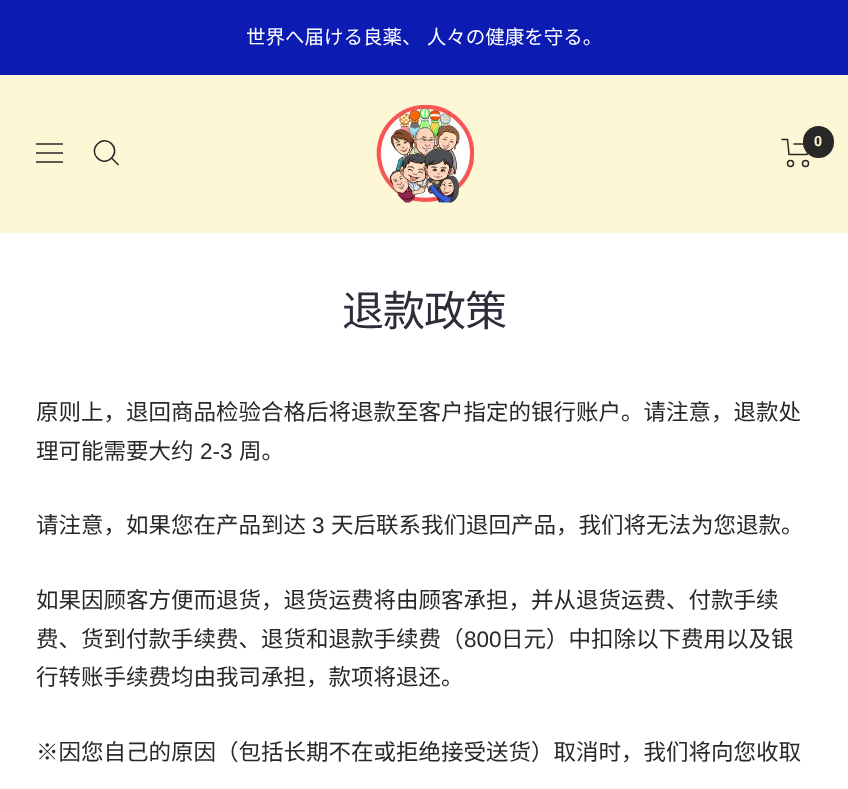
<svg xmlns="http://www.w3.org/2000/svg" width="848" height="789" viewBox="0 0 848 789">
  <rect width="100%" height="100%" fill="#ffffff"/>
  <rect x="0" y="0" width="848" height="75" fill="#0c1bb2"/>
  <text x="246" y="44" word-spacing="1" font-family="Noto Sans CJK SC" font-size="19.5" fill="#ffffff">世界へ届ける良薬、 人々の健康を守る。</text>
  <rect x="0" y="75" width="848" height="158" fill="#fef7d6"/>
  <path d="M36 144H63M36 162H63ZM36 153H63Z" fill="none" stroke="#282828" stroke-width="1.5"/>
  <path d="M111.5 158C121 148.5 107 134.5 97.5 144C88 153.5 102 167.5 111.5 158ZM111.5 158L118.5 165" fill="none" stroke="#282828" stroke-width="1.5"/>
  <image x="376" y="105" width="98" height="98" href="img1.png"/>
  <path d="M781.5 139.5H787.5L789 154.5H807L810 144H793.5" fill="none" stroke="#282828" stroke-width="1.5"/>
  <circle cx="790.5" cy="163.5" r="3" fill="none" stroke="#282828" stroke-width="1.5"/>
  <circle cx="805.5" cy="163.5" r="3" fill="none" stroke="#282828" stroke-width="1.5"/>
  <rect x="803" y="126" width="31" height="32" rx="15.5" fill="#282828"/>
  <text x="814" y="146" font-family="Roboto" font-size="14" font-weight="bold" fill="#fef7d6">0</text>
  <text x="342" y="326" font-family="Noto Sans CJK SC" font-size="42" letter-spacing="-1" fill="#2b2d39">退款政策</text>
  <text x="36" y="420" font-family="Noto Sans CJK SC" font-size="22.5" fill="#282828">原则上，退回商品检验合格后将退款至客户指定的银行账户。请注意，退款处</text>
  <text x="36" y="459" font-family="Noto Sans CJK SC" font-size="22.5" fill="#282828">理可能需要大约</text>
  <text x="200" y="459" font-family="Liberation Sans" font-size="22.5" fill="#282828">2-3</text>
  <text x="239" y="459" font-family="Noto Sans CJK SC" font-size="22.5" fill="#282828">周。</text>
  <text x="36" y="533" font-family="Noto Sans CJK SC" font-size="22.5" fill="#282828">请注意，如果您在产品到达</text>
  <text x="312" y="533" font-family="Liberation Sans" font-size="22.5" fill="#282828">3</text>
  <text x="331" y="533" font-family="Noto Sans CJK SC" font-size="22.5" fill="#282828">天后联系我们退回产品，我们将无法为您退款。</text>
  <text x="36" y="608" font-family="Noto Sans CJK SC" font-size="22.5" fill="#282828">如果因顾客方便而退货，退货运费将由顾客承担，并从退货运费、付款手续</text>
  <text x="36" y="647" font-family="Noto Sans CJK SC" font-size="22.5" fill="#282828">费、货到付款手续费、退货和退款手续费（</text>
  <text x="464" y="647" font-family="Liberation Sans" font-size="22.5" fill="#282828">800</text>
  <text x="501" y="647" font-family="Noto Sans CJK SC" font-size="22.5" fill="#282828">日元）中扣除以下费用以及银</text>
  <text x="36" y="685" font-family="Noto Sans CJK SC" font-size="22.5" fill="#282828">行转账手续费均由我司承担，款项将退还。</text>
  <text x="36" y="760" font-family="Noto Sans CJK SC" font-size="22.5" fill="#282828">※因您自己的原因（包括长期不在或拒绝接受送货）取消时，我们将向您收取</text>
</svg>
